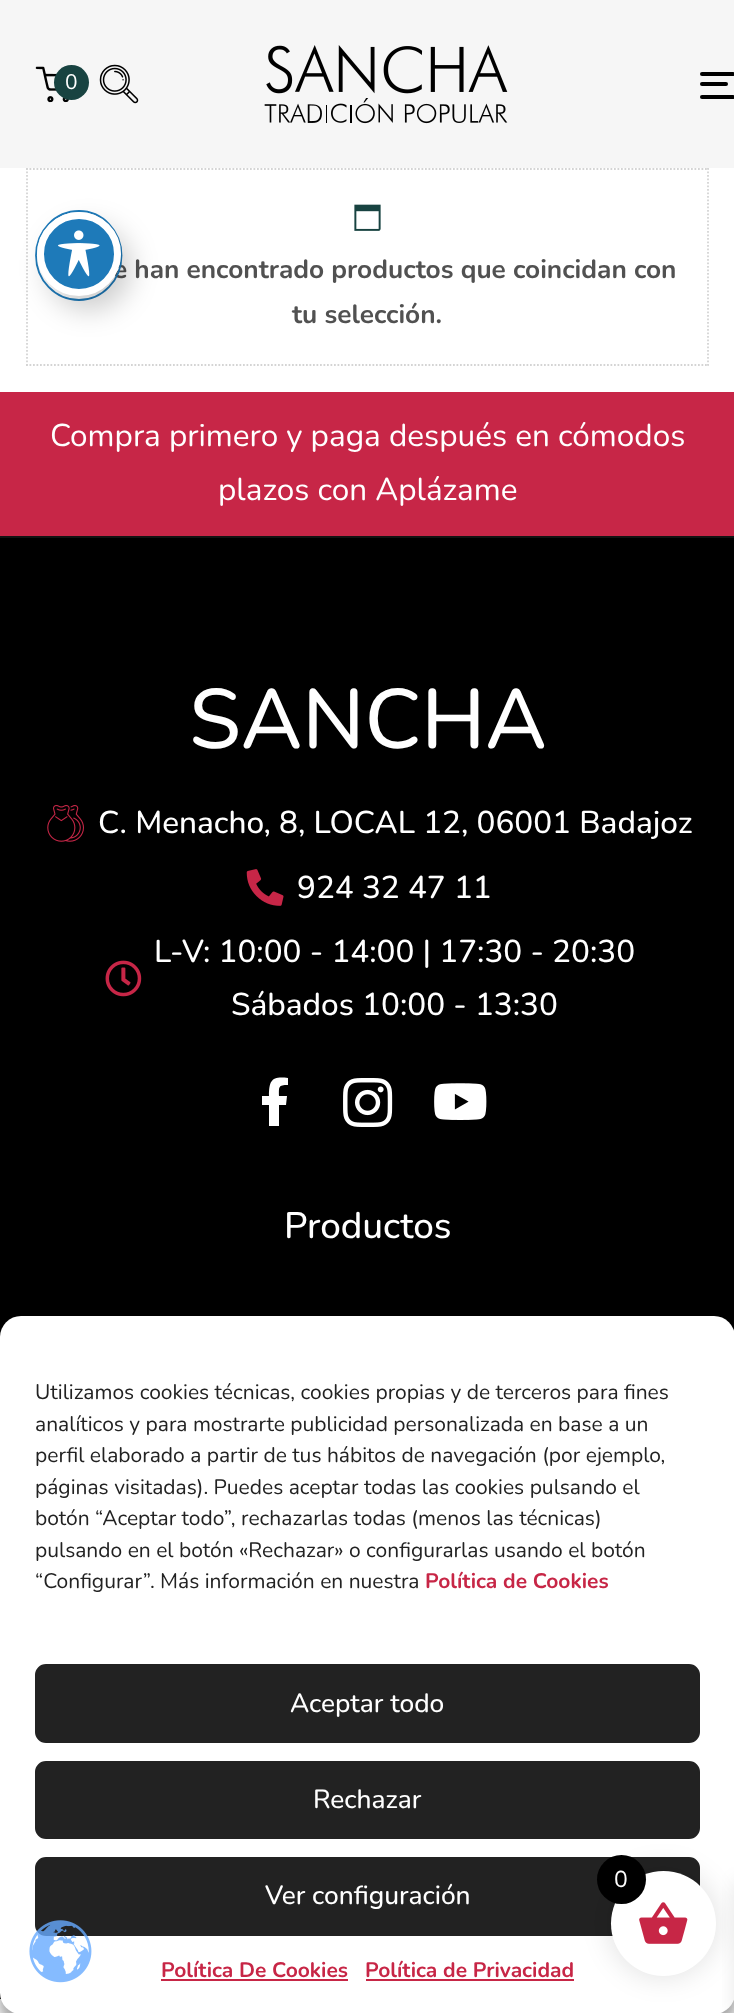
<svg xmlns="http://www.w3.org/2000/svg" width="734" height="2013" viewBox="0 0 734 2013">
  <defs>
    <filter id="blur1" x="-50%" y="-200%" width="200%" height="500%"><feGaussianBlur stdDeviation="14"/></filter>
    <filter id="blur2" x="-50%" y="-200%" width="200%" height="500%"><feGaussianBlur stdDeviation="9"/></filter>
    <filter id="blur3" x="-50%" y="-200%" width="200%" height="500%"><feGaussianBlur stdDeviation="5"/></filter>
    <filter id="blur4" x="-50%" y="-200%" width="200%" height="500%"><feGaussianBlur stdDeviation="17.5"/></filter>
    <filter id="blur5" x="-50%" y="-200%" width="200%" height="500%"><feGaussianBlur stdDeviation="13"/></filter>
  </defs>
  <rect width="100%" height="100%" fill="#ffffff"/>
  <rect x="0" y="0" width="734" height="168" fill="#f6f6f6"/>
  <image x="35" y="66" width="34" height="37" href="img1.png"/>
  <circle cx="71.5" cy="82.5" r="17.5" fill="#184341"/>
  <text x="65" y="89" font-family="Nunito" font-size="21" fill="#ffffff">0</text>
  <image x="99" y="64" width="40" height="40" href="img2.png"/>
  <image x="264" y="45" width="244" height="79" href="img3.png"/>
  <rect x="700" y="72" width="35" height="4" rx="2" fill="#000000"/>
  <rect x="700" y="82" width="28" height="4" rx="2" fill="#000000"/>
  <rect x="700" y="95" width="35" height="4" rx="2" fill="#000000"/>
  <path d="M26 169H709" fill="none" stroke="#d4d4d4" stroke-width="1.8" stroke-dasharray="1.75 1.75"/>
  <path d="M708 168V366" fill="none" stroke="#d4d4d4" stroke-width="1.8" stroke-dasharray="1.75 1.75"/>
  <path d="M26 365H709" fill="none" stroke="#d4d4d4" stroke-width="1.8" stroke-dasharray="1.75 1.75"/>
  <path d="M27 168V366" fill="none" stroke="#d4d4d4" stroke-width="1.8" stroke-dasharray="1.75 1.75"/>
  <image x="354" y="204" width="27" height="27" href="img4.png"/>
  <text x="113" y="278" font-family="Nunito" font-size="26.25" font-weight="bold" fill="#515151">e han encontrado productos que coincidan con</text>
  <text x="292" y="323" font-family="Nunito" font-size="26.25" font-weight="bold" fill="#515151">tu selección.</text>
  <rect x="0" y="392" width="734" height="144" fill="#c72647"/>
  <text x="50" y="446" font-family="Nunito" font-size="31.5" fill="#ffffff">Compra primero y paga después en cómodos</text>
  <text x="218" y="500" font-family="Nunito" font-size="31.5" fill="#ffffff">plazos con Aplázame</text>
  <rect x="0" y="538" width="734" height="1461" fill="#000000"/>
  <rect x="0" y="536" width="734" height="2" fill="#121212"/>
  <text x="189" y="748" font-family="Nunito" font-size="84" font-weight="500" fill="#ffffff">SANCHA</text>
  <image x="47" y="805" width="37" height="37" href="img5.png"/>
  <text x="98" y="833" font-family="Nunito" font-size="31.5" font-weight="500" fill="#ffffff">C. Menacho, 8, LOCAL 12, 06001 Badajoz</text>
  <image x="246" y="869" width="38" height="37" href="img6.png"/>
  <text x="297" y="898" font-family="Nunito" font-size="31.5" font-weight="500" fill="#ffffff">924 32 47 11</text>
  <image x="105" y="960" width="37" height="37" href="img7.png"/>
  <text x="154" y="962" font-family="Nunito" font-size="31.5" font-weight="500" fill="#ffffff">L-V: 10:00 - 14:00 | 17:30 - 20:30</text>
  <text x="231" y="1015" font-family="Nunito" font-size="31.5" font-weight="500" fill="#ffffff">Sábados 10:00 - 13:30</text>
  <path d="M286 1105H279V1126H269V1105H262V1096H269C269 1080 272 1076 288 1078V1085C278 1085 279 1087 279 1096H287Z" fill="#ffffff"/>
  <image x="343" y="1078" width="50" height="49" href="img8.png"/>
  <image x="434" y="1083" width="53" height="37" href="img9.png"/>
  <text x="284" y="1238" font-family="Nunito" font-size="36.75" font-weight="500" fill="#ffffff">Productos</text>
  <path d="M79 211C102.5 211 121.5 231 121.5 255.5C121.5 280 102.5 300 79 300C55 300 36 280 36 255.5C36 231 55 211 79 211Z" fill="none" stroke="#1e7ab9" stroke-width="1.8"/>
  <rect x="47" y="226" width="84" height="84" rx="42" fill="#000000" fill-opacity="0.2" filter="url(#blur1)"/>
  <circle cx="79" cy="254" r="38.5" fill="#1e7ab9" stroke="#ffffff" stroke-width="7"/>
  <image x="58" y="230" width="42" height="47" href="img10.png"/>
  <rect x="0" y="1990" width="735" height="16" fill="#000000" fill-opacity="0.1" filter="url(#blur2)"/>
  <rect x="0" y="1999" width="734" height="14" fill="#ffffff"/>
  <rect x="0" y="1327" width="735" height="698" rx="21" fill="#000000" fill-opacity="0.23" filter="url(#blur3)"/>
  <rect x="0" y="1334" width="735" height="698" rx="21" fill="#000000" fill-opacity="0.19" filter="url(#blur4)"/>
  <rect x="0" y="1316" width="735" height="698" rx="21" fill="#ffffff"/>
  <text x="35" y="1399" font-family="Nunito" font-size="21" fill="#222222">Utilizamos cookies técnicas, cookies propias y de terceros para fines</text>
  <text x="35" y="1431" font-family="Nunito" font-size="21" fill="#222222">analíticos y para mostrarte publicidad personalizada en base a un</text>
  <text x="35" y="1462" font-family="Nunito" font-size="21" fill="#222222">perfil elaborado a partir de tus hábitos de navegación (por ejemplo,</text>
  <text x="35" y="1494" font-family="Nunito" font-size="21" fill="#222222">páginas visitadas). Puedes aceptar todas las cookies pulsando el</text>
  <text x="35" y="1525" font-family="Nunito" font-size="21" fill="#222222">botón “Aceptar todo”, rechazarlas todas (menos las técnicas)</text>
  <text x="35" y="1557" font-family="Nunito" font-size="21" fill="#222222">pulsando en el botón «Rechazar» o configurarlas usando el botón</text>
  <text x="35" y="1588" font-family="Nunito" font-size="21" fill="#222222">“Configurar”. Más información en nuestra</text>
  <text x="425" y="1588" font-family="Nunito" font-size="21" font-weight="bold" fill="#c72646">Política de Cookies</text>
  <rect x="36" y="1665" width="663" height="77" rx="10" fill="#222222" stroke="#222222" stroke-width="2"/>
  <text x="290" y="1712" font-family="Nunito" font-size="26.25" font-weight="500" fill="#ffffff">Aceptar todo</text>
  <rect x="36" y="1762" width="663" height="76" rx="10" fill="#222222" stroke="#222222" stroke-width="2"/>
  <text x="313" y="1808" font-family="Nunito" font-size="26.25" font-weight="500" fill="#ffffff">Rechazar</text>
  <rect x="36" y="1858" width="663" height="77" rx="10" fill="#222222" stroke="#222222" stroke-width="2"/>
  <text x="265" y="1904" font-family="Nunito" font-size="26.25" font-weight="500" fill="#ffffff">Ver configuración</text>
  <text x="161" y="1977" font-family="Nunito" font-size="21" font-weight="bold" fill="#c72646">Política De Cookies</text>
  <rect x="161" y="1979" width="187" height="2" fill="#c72646"/>
  <text x="365" y="1977" font-family="Nunito" font-size="21" font-weight="bold" fill="#c72646">Política de Privacidad</text>
  <rect x="366" y="1979" width="208" height="2" fill="#c72646"/>
  <rect x="607" y="1867" width="112" height="112" rx="56" fill="#000000" fill-opacity="0.1" filter="url(#blur5)"/>
  <rect x="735" y="1881" width="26" height="132" fill="#000000" fill-opacity="0.1" filter="url(#blur2)"/>
  <circle cx="663.5" cy="1923.5" r="52.5" fill="#ffffff"/>
  <image x="639" y="1902" width="49" height="42" href="img11.png"/>
  <circle cx="621.5" cy="1879.5" r="24.5" fill="#000000"/>
  <text x="614" y="1887" font-family="Nunito" font-size="23" fill="#ffffff">0</text>
  <image x="29" y="1920" width="63" height="63" href="img12.png"/>
</svg>
